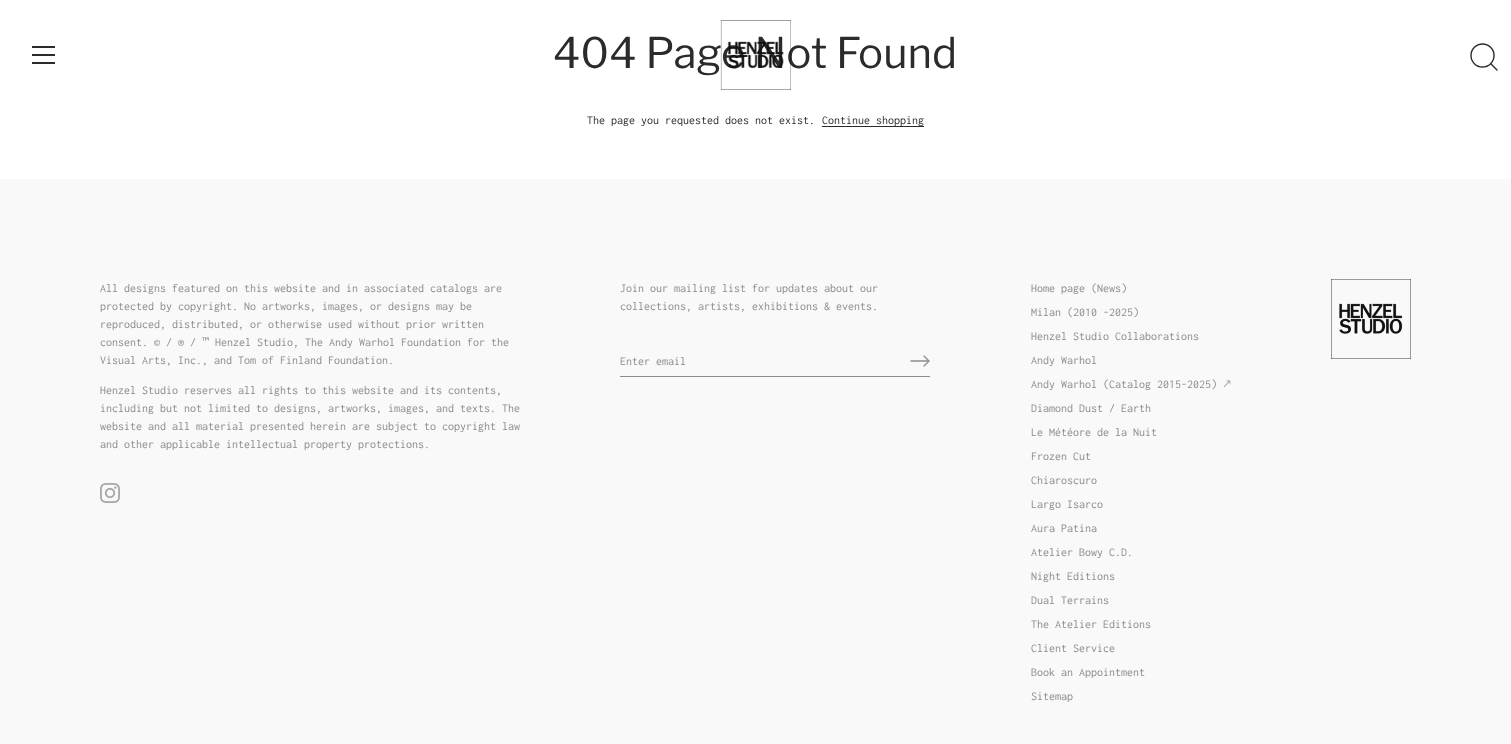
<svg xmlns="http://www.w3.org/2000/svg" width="1511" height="744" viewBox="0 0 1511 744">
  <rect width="100%" height="100%" fill="#ffffff"/>
  <rect x="32" y="46" width="23" height="2" fill="#2b2b2b"/>
  <rect x="32" y="54" width="23" height="2" fill="#2b2b2b"/>
  <rect x="32" y="62" width="23" height="2" fill="#2b2b2b"/>
  <text x="553" y="68" font-family="Libre Franklin" font-size="42" fill="#2b2b2b">404 Page Not Found</text>
  <image x="720" y="20" width="71" height="70" href="img1.png"/>
  <circle cx="1482.5" cy="55.5" r="11.5" fill="none" stroke="#2b2b2b" stroke-width="1.4"/>
  <path d="M1497 70L1491 64" fill="none" stroke="#2b2b2b" stroke-width="1.4" stroke-linecap="round" stroke-linejoin="round"/>
  <text x="587" y="124" font-family="Inconsolata" font-size="12" fill="#2b2b2b">The page you requested does not exist.</text>
  <rect x="822" y="126" width="102" height="1" fill="#2b2b2b"/>
  <text x="822" y="124" font-family="Inconsolata" font-size="12" fill="#2b2b2b">Continue shopping</text>
  <rect x="0" y="179" width="1511" height="565" fill="#f9f9f9"/>
  <text x="100" y="292" font-family="Inconsolata" font-size="12" fill="#8c8c8c">All designs featured on this website and in associated catalogs are</text>
  <text x="100" y="310" font-family="Inconsolata" font-size="12" fill="#8c8c8c">protected by copyright. No artworks, images, or designs may be</text>
  <text x="100" y="328" font-family="Inconsolata" font-size="12" fill="#8c8c8c">reproduced, distributed, or otherwise used without prior written</text>
  <text x="100" y="346" font-family="Inconsolata" font-size="12" fill="#8c8c8c">consent. © / ® /</text>
  <text x="202" y="346" font-family="DejaVu Sans Mono" font-size="12" fill="#8c8c8c">™</text>
  <text x="215" y="346" font-family="Inconsolata" font-size="12" fill="#8c8c8c">Henzel Studio, The Andy Warhol Foundation for the</text>
  <text x="100" y="364" font-family="Inconsolata" font-size="12" fill="#8c8c8c">Visual Arts, Inc., and Tom of Finland Foundation.</text>
  <text x="100" y="394" font-family="Inconsolata" font-size="12" fill="#8c8c8c">Henzel Studio reserves all rights to this website and its contents,</text>
  <text x="100" y="412" font-family="Inconsolata" font-size="12" fill="#8c8c8c">including but not limited to designs, artworks, images, and texts. The</text>
  <text x="100" y="430" font-family="Inconsolata" font-size="12" fill="#8c8c8c">website and all material presented herein are subject to copyright law</text>
  <text x="100" y="448" font-family="Inconsolata" font-size="12" fill="#8c8c8c">and other applicable intellectual property protections.</text>
  <image x="100" y="483" width="20" height="20" href="img2.png"/>
  <text x="620" y="292" font-family="Inconsolata" font-size="12" fill="#8c8c8c">Join our mailing list for updates about our</text>
  <text x="620" y="310" font-family="Inconsolata" font-size="12" fill="#8c8c8c">collections, artists, exhibitions &amp; events.</text>
  <rect x="620" y="376" width="310" height="1" fill="#8c8c8c"/>
  <text x="620" y="365" font-family="Inconsolata" font-size="12" fill="#8c8c8c">Enter email</text>
  <path d="M924 366L929 361L924 356" fill="none" stroke="#8c8c8c" stroke-width="1.3" stroke-linecap="round"/>
  <path d="M928 361H911" fill="none" stroke="#8c8c8c" stroke-width="1.3" stroke-linecap="round" stroke-linejoin="round"/>
  <text x="1031" y="292" font-family="Inconsolata" font-size="12" fill="#8c8c8c">Home page (News)</text>
  <text x="1031" y="316" font-family="Inconsolata" font-size="12" fill="#8c8c8c">Milan (2010 -2025)</text>
  <text x="1031" y="340" font-family="Inconsolata" font-size="12" fill="#8c8c8c">Henzel Studio Collaborations</text>
  <text x="1031" y="364" font-family="Inconsolata" font-size="12" fill="#8c8c8c">Andy Warhol</text>
  <text x="1031" y="388" font-family="Inconsolata" font-size="12" fill="#8c8c8c">Andy Warhol (Catalog 2015-2025)</text>
  <text x="1223" y="388" font-family="'Noto Sans Symbols 2'" font-size="12" fill="#8c8c8c">🡕</text>
  <text x="1031" y="412" font-family="Inconsolata" font-size="12" fill="#8c8c8c">Diamond Dust / Earth</text>
  <text x="1031" y="436" font-family="Inconsolata" font-size="12" fill="#8c8c8c">Le Météore de la Nuit</text>
  <text x="1031" y="460" font-family="Inconsolata" font-size="12" fill="#8c8c8c">Frozen Cut</text>
  <text x="1031" y="484" font-family="Inconsolata" font-size="12" fill="#8c8c8c">Chiaroscuro</text>
  <text x="1031" y="508" font-family="Inconsolata" font-size="12" fill="#8c8c8c">Largo Isarco</text>
  <text x="1031" y="532" font-family="Inconsolata" font-size="12" fill="#8c8c8c">Aura Patina</text>
  <text x="1031" y="556" font-family="Inconsolata" font-size="12" fill="#8c8c8c">Atelier Bowy C.D.</text>
  <text x="1031" y="580" font-family="Inconsolata" font-size="12" fill="#8c8c8c">Night Editions</text>
  <text x="1031" y="604" font-family="Inconsolata" font-size="12" fill="#8c8c8c">Dual Terrains</text>
  <text x="1031" y="628" font-family="Inconsolata" font-size="12" fill="#8c8c8c">The Atelier Editions</text>
  <text x="1031" y="652" font-family="Inconsolata" font-size="12" fill="#8c8c8c">Client Service</text>
  <text x="1031" y="676" font-family="Inconsolata" font-size="12" fill="#8c8c8c">Book an Appointment</text>
  <text x="1031" y="700" font-family="Inconsolata" font-size="12" fill="#8c8c8c">Sitemap</text>
  <image x="1331" y="279" width="80" height="80" href="img3.png"/>
</svg>
